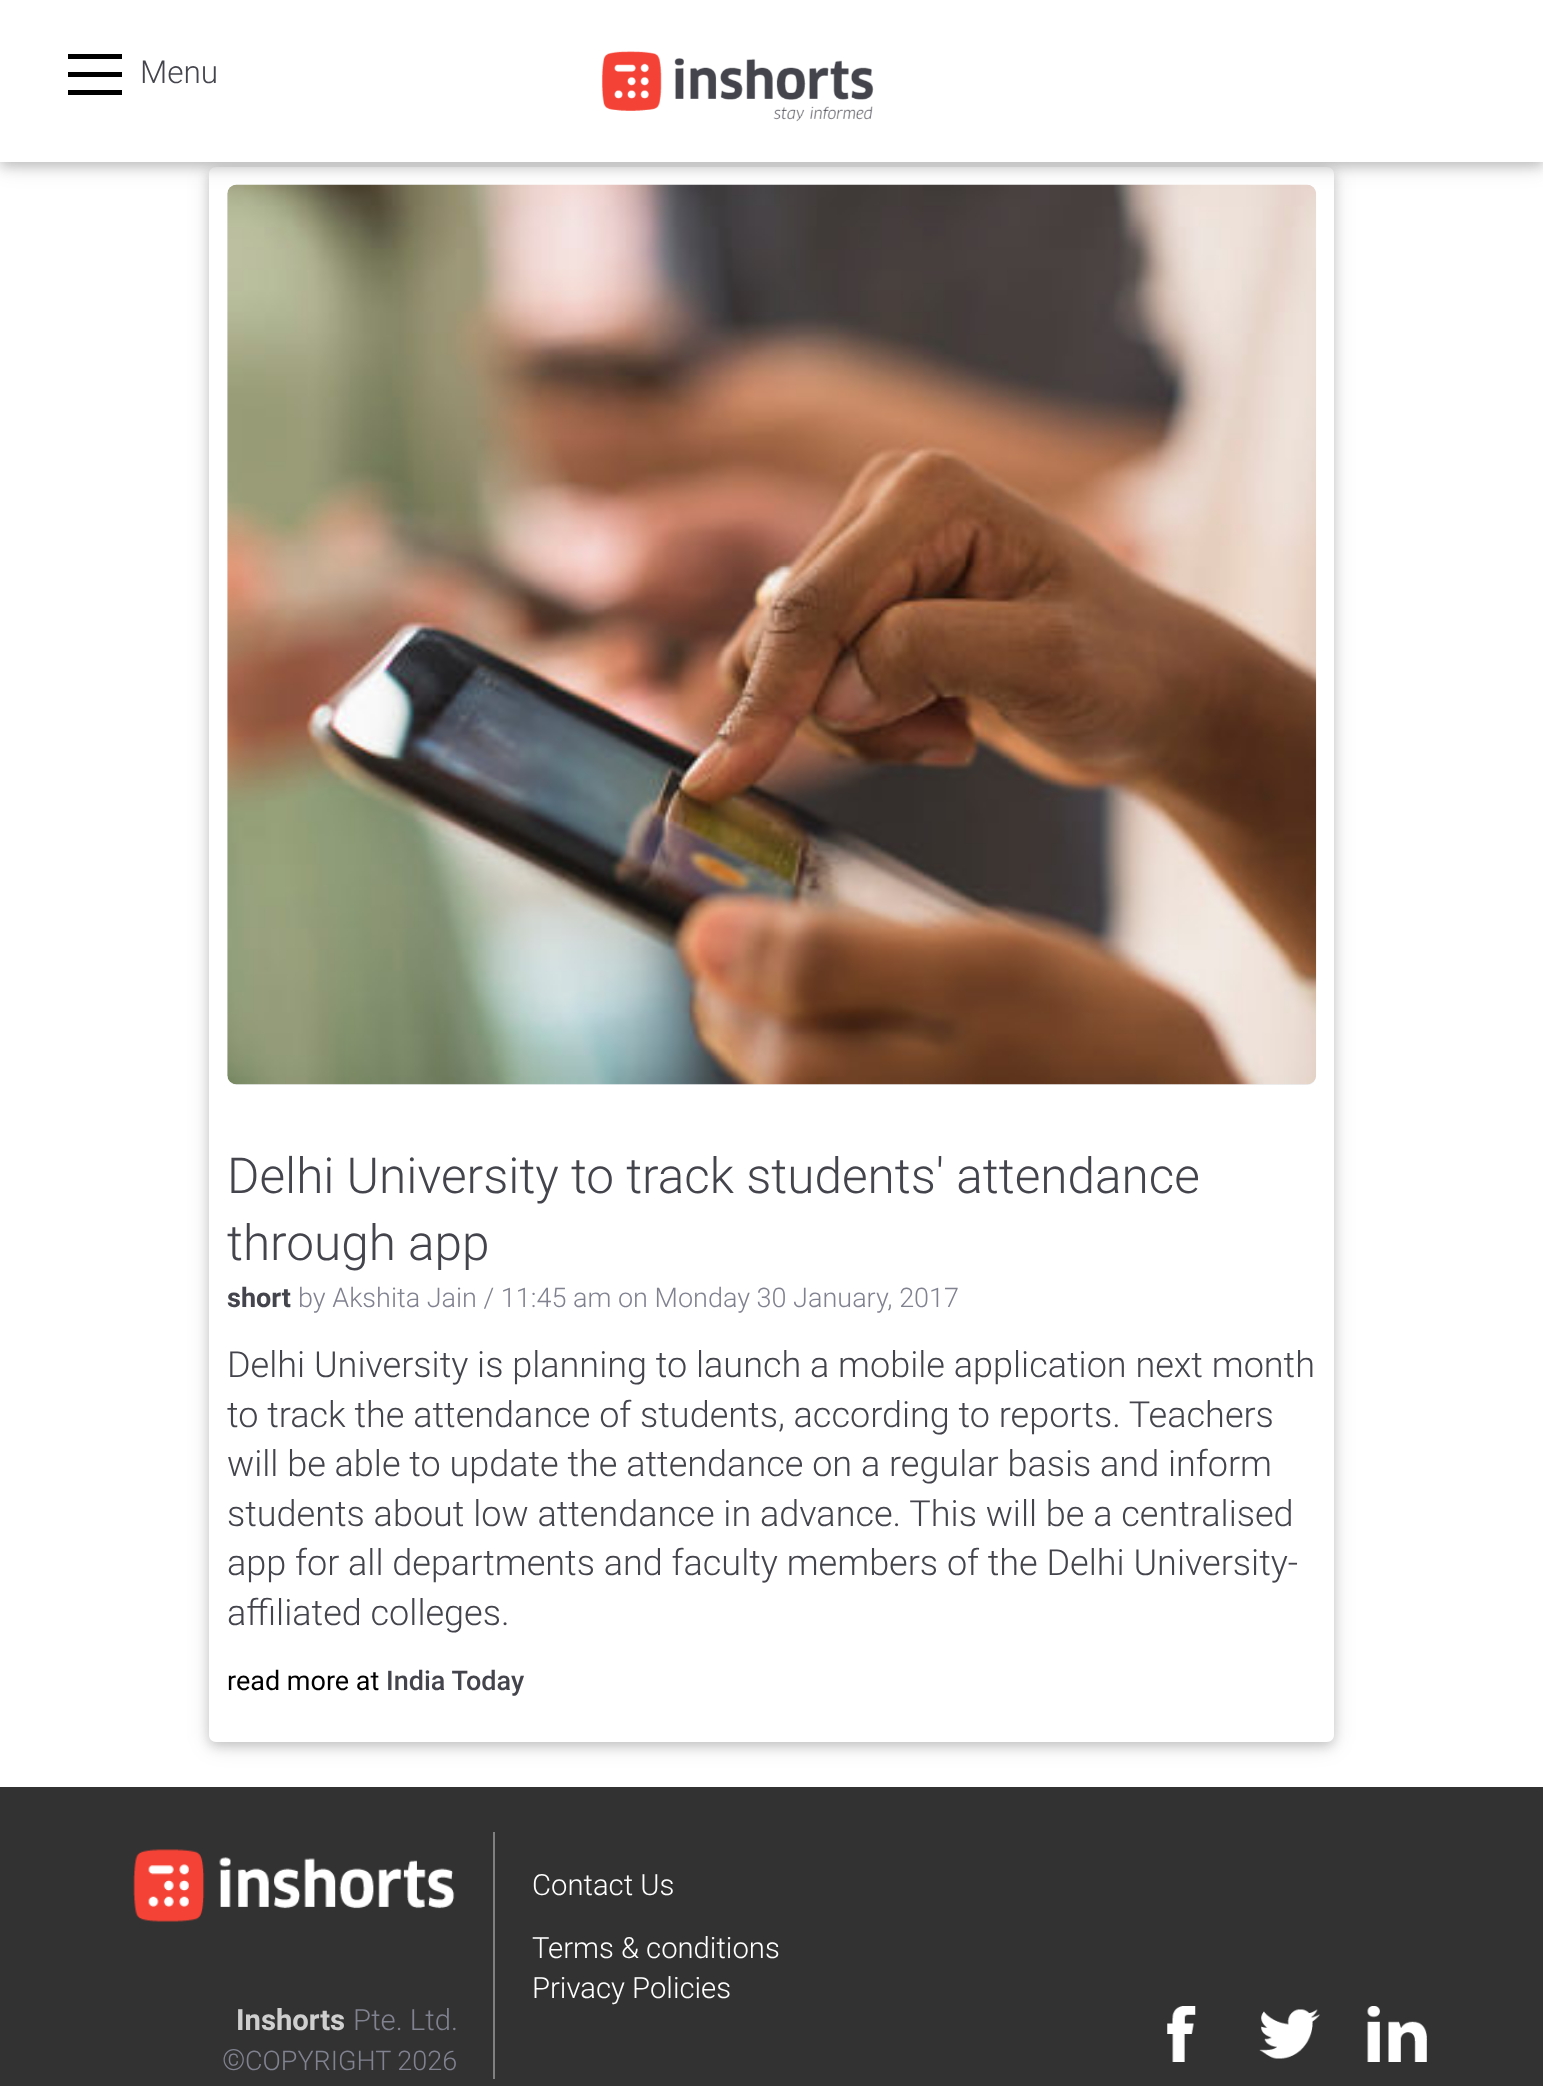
<svg xmlns="http://www.w3.org/2000/svg" width="1543" height="2086" viewBox="0 0 1543 2086">
  <defs>
    <clipPath id="clip1"><path d="M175 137H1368V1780H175ZM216 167H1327C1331 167 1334 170 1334 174V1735C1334 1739 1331 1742 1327 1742H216C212 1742 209 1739 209 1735V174C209 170 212 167 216 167Z" clip-rule="evenodd"/></clipPath>
    <filter id="blur1" x="-50%" y="-200%" width="200%" height="500%"><feGaussianBlur stdDeviation="11"/></filter>
    <clipPath id="clip2"><path d="M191 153H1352V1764H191ZM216 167H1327C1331 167 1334 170 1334 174V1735C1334 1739 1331 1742 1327 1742H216C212 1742 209 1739 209 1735V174C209 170 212 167 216 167Z" clip-rule="evenodd"/></clipPath>
    <filter id="blur2" x="-50%" y="-200%" width="200%" height="500%"><feGaussianBlur stdDeviation="5.5"/></filter>
    <linearGradient id="g1" gradientUnits="userSpaceOnUse" x1="-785" y1="302" x2="1015" y2="301"><stop offset="0.08" stop-color="#f3f5f7"/><stop offset="0.18" stop-color="#eaedf1"/><stop offset="0.33" stop-color="#f3f5f7"/></linearGradient>
    <linearGradient id="g2" gradientUnits="userSpaceOnUse" x1="1015" y1="302" x2="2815" y2="301"><stop offset="0.08" stop-color="#f3f5f7"/><stop offset="0.18" stop-color="#eaedf1"/><stop offset="0.33" stop-color="#f3f5f7"/></linearGradient>
  </defs>
  <rect width="100%" height="100%" fill="#ffffff"/>
  <g clip-path="url(#clip1)">
    <rect x="209" y="171" width="1125" height="1575" rx="7" fill="#000000" fill-opacity="0.12" filter="url(#blur1)"/>
  </g>
  <g clip-path="url(#clip2)">
    <rect x="209" y="171" width="1125" height="1575" rx="7" fill="#000000" fill-opacity="0.16" filter="url(#blur2)"/>
  </g>
  <path d="M236 185H1015V1085H236C231 1085 227 1081 227 1076V194C227 189 231 185 236 185Z" fill="url(#g1)"/>
  <path d="M1015 185H1307C1312 185 1316 189 1316 194V1076C1316 1081 1312 1085 1307 1085H1015Z" fill="url(#g2)"/>
  <image x="227" y="184" width="1090" height="901" href="img2.png"/>
  <rect x="0" y="5" width="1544" height="162" fill="#000000" fill-opacity="0.12" filter="url(#blur1)"/>
  <rect x="0" y="5" width="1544" height="162" fill="#000000" fill-opacity="0.16" filter="url(#blur2)"/>
  <rect x="0" y="0" width="1543" height="162" fill="#ffffff"/>
  <rect x="68" y="54" width="54" height="5" fill="#000000"/>
  <rect x="68" y="72" width="54" height="5" fill="#000000"/>
  <text x="140" y="83" font-family="Roboto" font-size="31.5" font-weight="300" fill="#44444d">Menu</text>
  <rect x="68" y="90" width="54" height="5" fill="#000000"/>
  <image x="601" y="51" width="273" height="71" href="img1.png"/>
  <text x="227" y="1193" font-family="Roboto" font-size="49.5" font-weight="300" fill="#44444d">Delhi University to track students' attendance</text>
  <text x="227" y="1260" font-family="Roboto" font-size="49.5" font-weight="300" fill="#44444d">through app</text>
  <text x="227" y="1307" font-family="Roboto" font-size="27" font-weight="bold" fill="#44444d">short</text>
  <text x="298" y="1307" font-family="Roboto" font-size="27" font-weight="300" fill="#808290">by Akshita Jain / 11:45 am on Monday 30 January, 2017</text>
  <text x="227" y="1377" font-family="Roboto" font-size="36" font-weight="300" fill="#44444d">Delhi University is planning to launch a mobile application next month</text>
  <text x="227" y="1427" font-family="Roboto" font-size="36" font-weight="300" fill="#44444d">to track the attendance of students, according to reports. Teachers</text>
  <text x="227" y="1476" font-family="Roboto" font-size="36" font-weight="300" fill="#44444d">will be able to update the attendance on a regular basis and inform</text>
  <text x="227" y="1526" font-family="Roboto" font-size="36" font-weight="300" fill="#44444d">students about low attendance in advance. This will be a centralised</text>
  <text x="227" y="1575" font-family="Roboto" font-size="36" font-weight="300" fill="#44444d">app for all departments and faculty members of the Delhi University-</text>
  <text x="227" y="1625" font-family="Roboto" font-size="36" font-weight="300" fill="#44444d">affiliated colleges.</text>
  <text x="227" y="1690" font-family="Roboto" font-size="27" fill="#000000">read more at</text>
  <text x="386" y="1690" font-family="Roboto" font-size="27" font-weight="500" fill="#44444d">India Today</text>
  <rect x="0" y="1787" width="1543" height="299" fill="#323232"/>
  <rect x="493" y="1832" width="2" height="247" fill="#808080"/>
  <text x="532" y="1895" font-family="Roboto" font-size="29.25" font-weight="300" fill="#ffffff">Contact Us</text>
  <text x="532" y="1958" font-family="Roboto" font-size="29.25" font-weight="300" fill="#ffffff">Terms &amp; conditions</text>
  <text x="532" y="1998" font-family="Roboto" font-size="29.25" font-weight="300" fill="#ffffff">Privacy Policies</text>
  <image x="133" y="1849" width="322" height="73" href="img3.png"/>
  <text x="236" y="2030" font-family="Roboto" font-size="29.25" font-weight="bold" fill="#cfcfcf">Inshorts</text>
  <text x="353" y="2030" font-family="Roboto" font-size="29.25" font-weight="300" fill="#808290">Pte. Ltd.</text>
  <text x="222" y="2070" font-family="Roboto" font-size="29.25" font-weight="300" fill="#808290">©</text>
  <text x="245" y="2070" font-family="Roboto" font-size="27" font-weight="300" fill="#808290">COPYRIGHT 2026</text>
  <image x="1167" y="2006" width="29" height="56" href="img4.png"/>
  <image x="1259" y="2009" width="61" height="50" href="img5.png"/>
  <image x="1367" y="2006" width="60" height="56" href="img6.png"/>
</svg>
